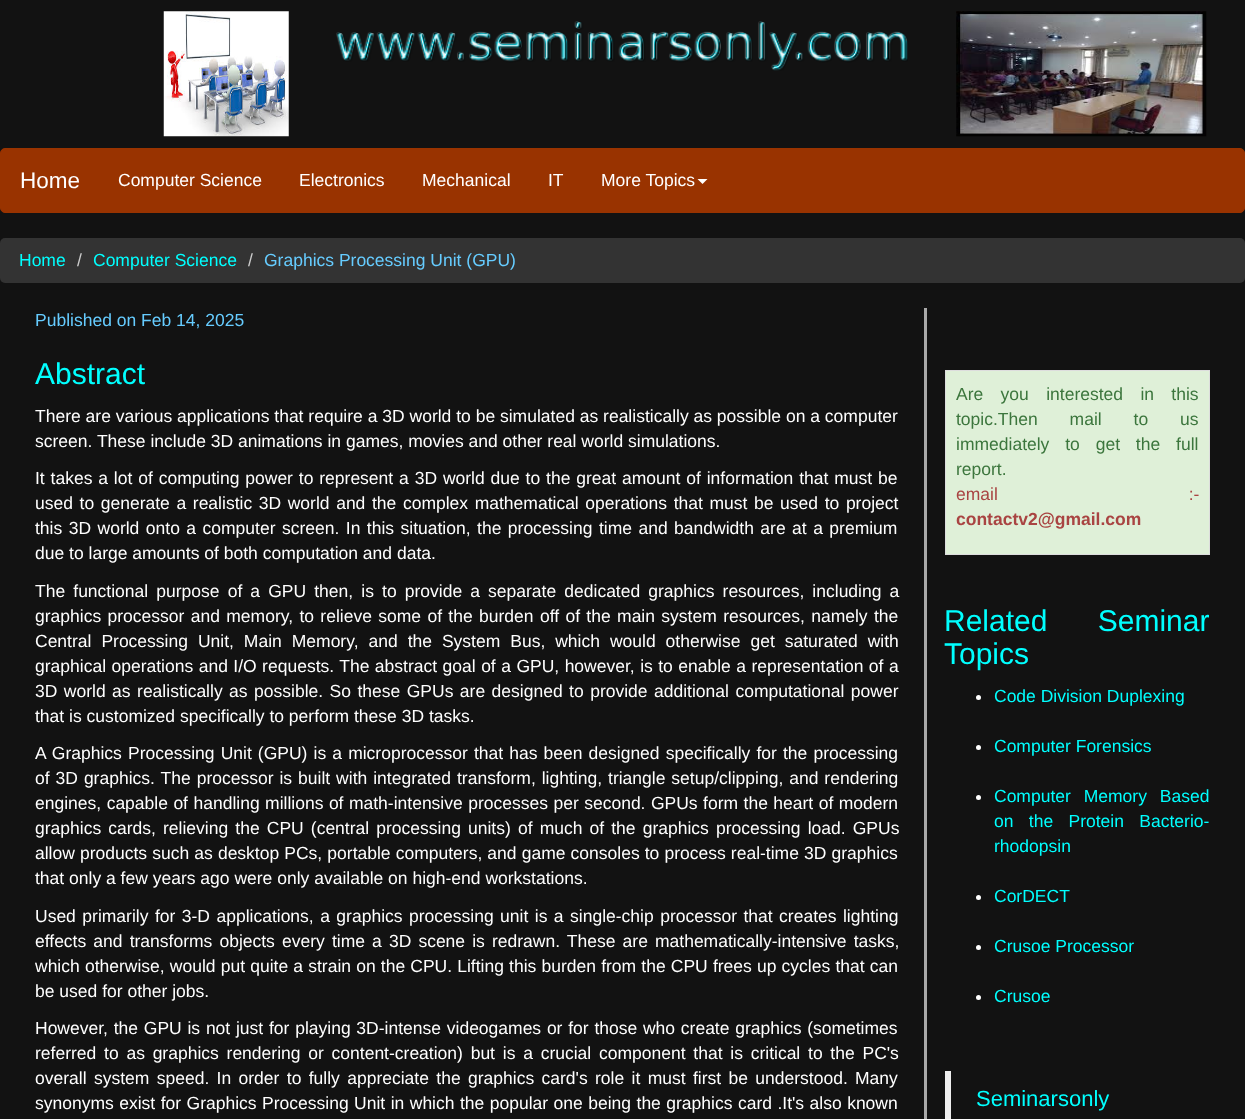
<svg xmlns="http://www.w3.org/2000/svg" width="1245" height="1119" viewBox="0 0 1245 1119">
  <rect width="100%" height="100%" fill="#121212"/>
  <image x="163" y="11" width="126" height="126" href="img1.png"/>
  <image x="336" y="21" width="572" height="50" href="img2.png"/>
  <image x="956" y="11" width="251" height="126" href="img3.png"/>
  <rect x="0.5" y="148.5" width="1244" height="64" rx="4.5" fill="#993300" stroke="#993300"/>
  <text x="20" y="188" font-family="Liberation Sans" font-size="22.5" fill="#ffffff">Home</text>
  <text x="118" y="186" font-family="Liberation Sans" font-size="17.5" fill="#ffffff">Computer Science</text>
  <text x="299" y="186" font-family="Liberation Sans" font-size="17.5" fill="#ffffff">Electronics</text>
  <text x="422" y="186" font-family="Liberation Sans" font-size="17.5" fill="#ffffff">Mechanical</text>
  <text x="548" y="186" font-family="Liberation Sans" font-size="17.5" fill="#ffffff">IT</text>
  <text x="601" y="186" font-family="Liberation Sans" font-size="17.5" fill="#ffffff">More Topics</text>
  <path d="M697.5 179H707.5L702.5 184Z" fill="#ffffff"/>
  <rect x="0" y="238" width="1245" height="45" rx="5" fill="#333333"/>
  <text x="19" y="266" font-family="Liberation Sans" font-size="17.5" fill="#00ffff">Home</text>
  <text x="77" y="266" font-family="Liberation Sans" font-size="17.5" fill="#cccccc">/</text>
  <text x="93" y="266" font-family="Liberation Sans" font-size="17.5" fill="#00ffff">Computer Science</text>
  <text x="248" y="266" font-family="Liberation Sans" font-size="17.5" fill="#cccccc">/</text>
  <text x="264" y="266" font-family="Liberation Sans" font-size="17.5" fill="#66ccff">Graphics Processing Unit (GPU)</text>
  <rect x="924" y="308" width="3" height="811" fill="#a9a9a9"/>
  <text x="35" y="326" font-family="Liberation Sans" font-size="17.5" fill="#66ccff">Published on Feb 14, 2025</text>
  <text x="35" y="384" font-family="Liberation Sans" font-size="30" fill="#00ffff">Abstract</text>
  <text x="35" y="422" font-family="Liberation Sans" font-size="17.5" fill="#ffffff">There are various applications that require a 3D world to be simulated as realistically as possible on a computer</text>
  <text x="35" y="447" font-family="Liberation Sans" font-size="17.5" fill="#ffffff">screen. These include 3D animations in games, movies and other real world simulations.</text>
  <text x="35" y="484" word-spacing="1" font-family="Liberation Sans" font-size="17.5" fill="#ffffff">It takes a lot of computing power to represent a 3D world due to the great amount of information that must be</text>
  <text x="35" y="509" word-spacing="1.75" font-family="Liberation Sans" font-size="17.5" fill="#ffffff">used to generate a realistic 3D world and the complex mathematical operations that must be used to project</text>
  <text x="35" y="534" word-spacing="1.6" font-family="Liberation Sans" font-size="17.5" fill="#ffffff">this 3D world onto a computer screen. In this situation, the processing time and bandwidth are at a premium</text>
  <text x="35" y="559" font-family="Liberation Sans" font-size="17.5" fill="#ffffff">due to large amounts of both computation and data.</text>
  <text x="35" y="597" word-spacing="3.25" font-family="Liberation Sans" font-size="17.5" fill="#ffffff">The functional purpose of a GPU then, is to provide a separate dedicated graphics resources, including a</text>
  <text x="35" y="622" word-spacing="1.5" font-family="Liberation Sans" font-size="17.5" fill="#ffffff">graphics processor and memory, to relieve some of the burden off of the main system resources, namely the</text>
  <text x="35" y="647" word-spacing="5.1" font-family="Liberation Sans" font-size="17.5" fill="#ffffff">Central Processing Unit, Main Memory, and the System Bus, which would otherwise get saturated with</text>
  <text x="35" y="672" word-spacing="0.6" font-family="Liberation Sans" font-size="17.5" fill="#ffffff">graphical operations and I/O requests. The abstract goal of a GPU, however, is to enable a representation of a</text>
  <text x="35" y="697" word-spacing="1.6" font-family="Liberation Sans" font-size="17.5" fill="#ffffff">3D world as realistically as possible. So these GPUs are designed to provide additional computational power</text>
  <text x="35" y="722" font-family="Liberation Sans" font-size="17.5" fill="#ffffff">that is customized specifically to perform these 3D tasks.</text>
  <text x="35" y="759" word-spacing="1.25" font-family="Liberation Sans" font-size="17.5" fill="#ffffff">A Graphics Processing Unit (GPU) is a microprocessor that has been designed specifically for the processing</text>
  <text x="35" y="784" word-spacing="1.1" font-family="Liberation Sans" font-size="17.5" fill="#ffffff">of 3D graphics. The processor is built with integrated transform, lighting, triangle setup/clipping, and rendering</text>
  <text x="35" y="809" word-spacing="0.6" font-family="Liberation Sans" font-size="17.5" fill="#ffffff">engines, capable of handling millions of math-intensive processes per second. GPUs form the heart of modern</text>
  <text x="35" y="834" word-spacing="2.25" font-family="Liberation Sans" font-size="17.5" fill="#ffffff">graphics cards, relieving the CPU (central processing units) of much of the graphics processing load. GPUs</text>
  <text x="35" y="859" word-spacing="0.25" font-family="Liberation Sans" font-size="17.5" fill="#ffffff">allow products such as desktop PCs, portable computers, and game consoles to process real-time 3D graphics</text>
  <text x="35" y="884" font-family="Liberation Sans" font-size="17.5" fill="#ffffff">that only a few years ago were only available on high-end workstations.</text>
  <text x="35" y="922" word-spacing="1.6" font-family="Liberation Sans" font-size="17.5" fill="#ffffff">Used primarily for 3-D applications, a graphics processing unit is a single-chip processor that creates lighting</text>
  <text x="35" y="947" word-spacing="2.25" font-family="Liberation Sans" font-size="17.5" fill="#ffffff">effects and transforms objects every time a 3D scene is redrawn. These are mathematically-intensive tasks,</text>
  <text x="35" y="972" word-spacing="0.3" font-family="Liberation Sans" font-size="17.5" fill="#ffffff">which otherwise, would put quite a strain on the CPU. Lifting this burden from the CPU frees up cycles that can</text>
  <text x="35" y="997" font-family="Liberation Sans" font-size="17.5" fill="#ffffff">be used for other jobs.</text>
  <text x="35" y="1034" word-spacing="0.9" font-family="Liberation Sans" font-size="17.5" fill="#ffffff">However, the GPU is not just for playing 3D-intense videogames or for those who create graphics (sometimes</text>
  <text x="35" y="1059" word-spacing="2.9" font-family="Liberation Sans" font-size="17.5" fill="#ffffff">referred to as graphics rendering or content-creation) but is a crucial component that is critical to the PC's</text>
  <text x="35" y="1084" word-spacing="2.5" font-family="Liberation Sans" font-size="17.5" fill="#ffffff">overall system speed. In order to fully appreciate the graphics card's role it must first be understood.</text>
  <text x="855" y="1084" font-family="Liberation Sans" font-size="17.5" fill="#ffffff">Many</text>
  <text x="35" y="1109" word-spacing="0.6" font-family="Liberation Sans" font-size="17.5" fill="#ffffff">synonyms exist for Graphics Processing Unit in which the popular one being the graphics card .It's also known</text>
  <rect x="945" y="370" width="265" height="1" fill="#dddddd"/>
  <rect x="1209" y="370" width="1" height="185" fill="#dddddd"/>
  <rect x="945" y="554" width="265" height="1" fill="#dddddd"/>
  <rect x="945" y="370" width="1" height="185" fill="#dddddd"/>
  <rect x="946" y="371" width="263" height="183" fill="#dff0d8"/>
  <text x="956" y="400" word-spacing="12.5" font-family="Liberation Sans" font-size="17.5" fill="#3c763d">Are you interested in this</text>
  <text x="956" y="425" word-spacing="27" font-family="Liberation Sans" font-size="17.5" fill="#3c763d">topic.Then mail to us</text>
  <text x="956" y="450" word-spacing="11" font-family="Liberation Sans" font-size="17.5" fill="#3c763d">immediately to get the full</text>
  <text x="956" y="475" font-family="Liberation Sans" font-size="17.5" fill="#3c763d">report.</text>
  <text x="956" y="500" word-spacing="186" font-family="Liberation Sans" font-size="17.5" fill="#a94442">email :-</text>
  <text x="956" y="525" font-family="Liberation Sans" font-size="17.5" font-weight="bold" fill="#a94442">contactv2@gmail.com</text>
  <text x="944" y="631" word-spacing="42" font-family="Liberation Sans" font-size="30" fill="#00ffff">Related Seminar</text>
  <text x="944" y="664" font-family="Liberation Sans" font-size="30" fill="#00ffff">Topics</text>
  <circle cx="978.5" cy="697.5" r="2.5" fill="#ffffff"/>
  <text x="994" y="702" font-family="Liberation Sans" font-size="17.5" fill="#00ffff">Code Division Duplexing</text>
  <circle cx="978.5" cy="747.5" r="2.5" fill="#ffffff"/>
  <text x="994" y="752" font-family="Liberation Sans" font-size="17.5" fill="#00ffff">Computer Forensics</text>
  <circle cx="978.5" cy="797.5" r="2.5" fill="#ffffff"/>
  <text x="994" y="802" word-spacing="8" font-family="Liberation Sans" font-size="17.5" fill="#00ffff">Computer Memory Based</text>
  <text x="994" y="827" word-spacing="10.5" font-family="Liberation Sans" font-size="17.5" fill="#00ffff">on the Protein Bacterio-</text>
  <text x="994" y="852" font-family="Liberation Sans" font-size="17.5" fill="#00ffff">rhodopsin</text>
  <circle cx="978.5" cy="897.5" r="2.5" fill="#ffffff"/>
  <text x="994" y="902" font-family="Liberation Sans" font-size="17.5" fill="#00ffff">CorDECT</text>
  <circle cx="978.5" cy="947.5" r="2.5" fill="#ffffff"/>
  <text x="994" y="952" font-family="Liberation Sans" font-size="17.5" fill="#00ffff">Crusoe Processor</text>
  <circle cx="978.5" cy="997.5" r="2.5" fill="#ffffff"/>
  <text x="994" y="1002" font-family="Liberation Sans" font-size="17.5" fill="#00ffff">Crusoe</text>
  <rect x="945" y="1071" width="6" height="48" fill="#eeeeee"/>
  <text x="976" y="1106" font-family="Liberation Sans" font-size="22" fill="#00ffff">Seminarsonly</text>
</svg>
